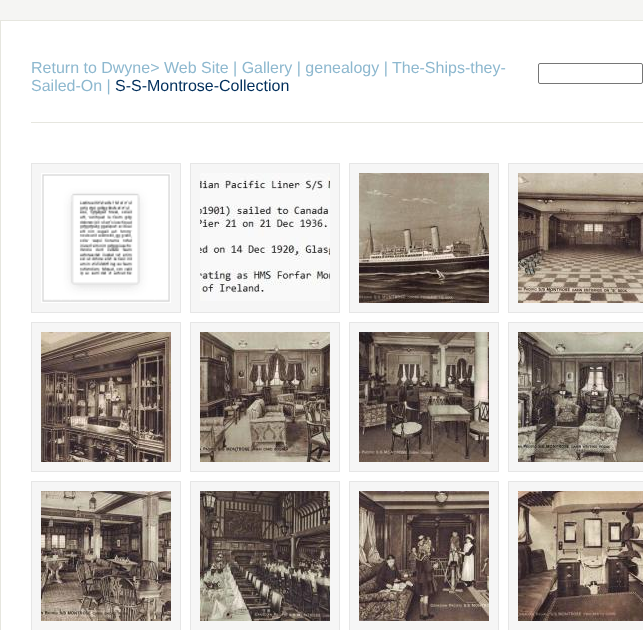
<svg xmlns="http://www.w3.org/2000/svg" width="643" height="630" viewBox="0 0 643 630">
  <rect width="100%" height="100%" fill="#f5f5f3"/>
  <rect x="1" y="21" width="642" height="609" fill="#ffffff"/>
  <rect x="0" y="20" width="643" height="1" fill="#e6e6df"/>
  <rect x="0" y="20" width="1" height="610" fill="#e6e6df"/>
  <rect x="31" y="122" width="612" height="1" fill="#e6e6df"/>
  <text x="31" y="73" font-family="Liberation Sans" font-size="16" fill="#8db8cf">Return to Dwyne&gt; Web Site | Gallery | genealogy | The-Ships-they-</text>
  <text x="31" y="91" font-family="Liberation Sans" font-size="16" fill="#8db8cf">Sailed-On |</text>
  <text x="115" y="91" font-family="Liberation Sans" font-size="16" fill="#002e5b">S-S-Montrose-Collection</text>
  <rect x="538.5" y="63.5" width="104" height="20" rx="1.5" fill="none" stroke="#767676"/>
  <rect x="31.5" y="163.5" width="149" height="149" fill="#f6f6f6" stroke="#e6e6e6"/>
  <image x="41" y="173" width="130" height="130" href="img1.png"/>
  <rect x="190.5" y="163.5" width="149" height="149" fill="#f6f6f6" stroke="#e6e6e6"/>
  <image x="200" y="173" width="130" height="128" href="img2.png"/>
  <rect x="349.5" y="163.5" width="149" height="149" fill="#f6f6f6" stroke="#e6e6e6"/>
  <image x="359" y="173" width="130" height="130" href="img3.png"/>
  <rect x="508.5" y="163.5" width="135" height="149" fill="#f6f6f6" stroke="#e6e6e6"/>
  <image x="518" y="173" width="125" height="130" href="img4.png"/>
  <rect x="31.5" y="322.5" width="149" height="149" fill="#f6f6f6" stroke="#e6e6e6"/>
  <image x="41" y="332" width="130" height="130" href="img5.png"/>
  <rect x="190.5" y="322.5" width="149" height="149" fill="#f6f6f6" stroke="#e6e6e6"/>
  <image x="200" y="332" width="130" height="130" href="img6.png"/>
  <rect x="349.5" y="322.5" width="149" height="149" fill="#f6f6f6" stroke="#e6e6e6"/>
  <image x="359" y="332" width="130" height="130" href="img7.png"/>
  <rect x="508.5" y="322.5" width="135" height="149" fill="#f6f6f6" stroke="#e6e6e6"/>
  <image x="518" y="332" width="125" height="130" href="img8.png"/>
  <rect x="31.5" y="481.5" width="149" height="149" fill="#f6f6f6" stroke="#e6e6e6"/>
  <image x="41" y="491" width="130" height="130" href="img9.png"/>
  <rect x="190.5" y="481.5" width="149" height="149" fill="#f6f6f6" stroke="#e6e6e6"/>
  <image x="200" y="491" width="130" height="130" href="img10.png"/>
  <rect x="349.5" y="481.5" width="149" height="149" fill="#f6f6f6" stroke="#e6e6e6"/>
  <image x="359" y="491" width="130" height="130" href="img11.png"/>
  <rect x="508.5" y="481.5" width="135" height="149" fill="#f6f6f6" stroke="#e6e6e6"/>
  <image x="518" y="491" width="125" height="130" href="img12.png"/>
</svg>
